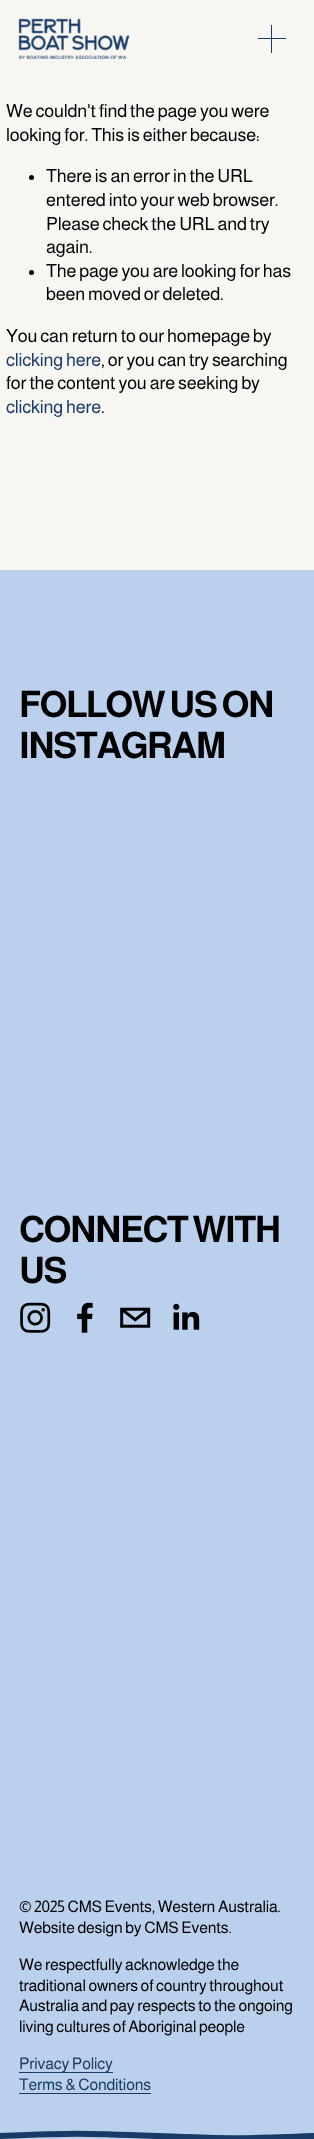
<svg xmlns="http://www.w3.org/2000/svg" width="314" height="2139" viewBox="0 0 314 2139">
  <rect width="100%" height="100%" fill="#f7f6f3"/>
  <image x="18" y="18" width="112" height="41" href="img1.png"/>
  <rect x="258" y="38" width="28" height="1" fill="#173b66"/>
  <rect x="271" y="25" width="1" height="28" fill="#173b66"/>
  <text x="6" y="117" font-family="Almarai" font-size="18.2" letter-spacing="-0.2" fill="#000000">We couldn't find the page you were</text>
  <text x="6" y="141" font-family="Almarai" font-size="18.2" letter-spacing="-0.2" fill="#000000">looking for. This is either because:</text>
  <circle cx="31.5" cy="177.5" r="2.5" fill="#000000"/>
  <text x="46" y="182" font-family="Almarai" font-size="18.2" letter-spacing="-0.2" fill="#000000">There is an error in the URL</text>
  <text x="46" y="206" font-family="Almarai" font-size="18.2" letter-spacing="-0.2" fill="#000000">entered into your web browser.</text>
  <text x="46" y="230" font-family="Almarai" font-size="18.2" letter-spacing="-0.2" fill="#000000">Please check the URL and try</text>
  <text x="46" y="253" font-family="Almarai" font-size="18.2" letter-spacing="-0.2" fill="#000000">again.</text>
  <circle cx="31.5" cy="272.5" r="2.5" fill="#000000"/>
  <text x="46" y="277" font-family="Almarai" font-size="18.2" letter-spacing="-0.2" fill="#000000">The page you are looking for has</text>
  <text x="46" y="300" font-family="Almarai" font-size="18.2" letter-spacing="-0.2" fill="#000000">been moved or deleted.</text>
  <text x="6" y="342" font-family="Almarai" font-size="18.2" letter-spacing="-0.2" fill="#000000">You can return to our homepage by</text>
  <text x="6" y="366" font-family="Almarai" font-size="18.2" letter-spacing="-0.2" fill="#173b66">clicking here</text>
  <text x="101" y="366" font-family="Almarai" font-size="18.2" letter-spacing="-0.2" fill="#000000">, or you can try searching</text>
  <text x="6" y="389" font-family="Almarai" font-size="18.2" letter-spacing="-0.2" fill="#000000">for the content you are seeking by</text>
  <text x="6" y="413" font-family="Almarai" font-size="18.2" letter-spacing="-0.2" fill="#173b66">clicking here</text>
  <text x="101" y="413" font-family="Almarai" font-size="18.2" letter-spacing="-0.2" fill="#000000">.</text>
  <rect x="0" y="570" width="314" height="1569" fill="#bad0ec"/>
  <text x="19" y="717" font-family="Almarai" font-size="36.5" font-weight="bold" letter-spacing="-1.5" fill="#000000">FOLLOW US ON</text>
  <text x="19" y="758" font-family="Almarai" font-size="36.5" font-weight="bold" letter-spacing="-1.5" fill="#000000">INSTAGRAM</text>
  <text x="19" y="1242" font-family="Almarai" font-size="36.5" font-weight="bold" letter-spacing="-1.5" fill="#000000">CONNECT WITH</text>
  <text x="19" y="1283" font-family="Almarai" font-size="36.5" font-weight="bold" letter-spacing="-1.5" fill="#000000">US</text>
  <image x="20" y="1302" width="31" height="31" href="img2.png"/>
  <image x="77" y="1302" width="16" height="31" href="img3.png"/>
  <image x="120" y="1307" width="31" height="21" href="img4.png"/>
  <image x="173" y="1303" width="27" height="27" href="img5.png"/>
  <text x="19" y="1912" font-family="Almarai" font-size="16" letter-spacing="-0.2" fill="#000000">© 2025 CMS Events, Western Australia.</text>
  <text x="19" y="1933" font-family="Almarai" font-size="16" letter-spacing="-0.2" fill="#000000">Website design by CMS Events.</text>
  <text x="19" y="1970" font-family="Almarai" font-size="16" letter-spacing="-0.2" fill="#000000">We respectfully acknowledge the</text>
  <text x="19" y="1991" font-family="Almarai" font-size="16" letter-spacing="-0.2" fill="#000000">traditional owners of country throughout</text>
  <text x="19" y="2011" font-family="Almarai" font-size="16" letter-spacing="-0.2" fill="#000000">Australia and pay respects to the ongoing</text>
  <text x="19" y="2032" font-family="Almarai" font-size="16" letter-spacing="-0.2" fill="#000000">living cultures of Aboriginal people</text>
  <rect x="19" y="2072" width="94" height="1" fill="#173b66"/>
  <text x="19" y="2069" font-family="Almarai" font-size="16" letter-spacing="-0.2" fill="#173b66">Privacy Policy</text>
  <text x="19" y="2090" font-family="Almarai" font-size="16" letter-spacing="-0.2" fill="#173b66">Terms &amp; Conditions</text>
  <rect x="19" y="2093" width="132" height="1" fill="#173b66"/>
  <path d="M-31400 1354.5V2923M-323 2134V2136C-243 2133-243 2133-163 2136C-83 2139-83 2139-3 2136C77 2133 77 2133 157 2136C237 2139 237 2139 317 2136C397 2133 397 2133 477 2136C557 2139 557 2139 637 2136" fill="none" stroke="#173b66" stroke-width="6" stroke-linecap="square"/>
</svg>
